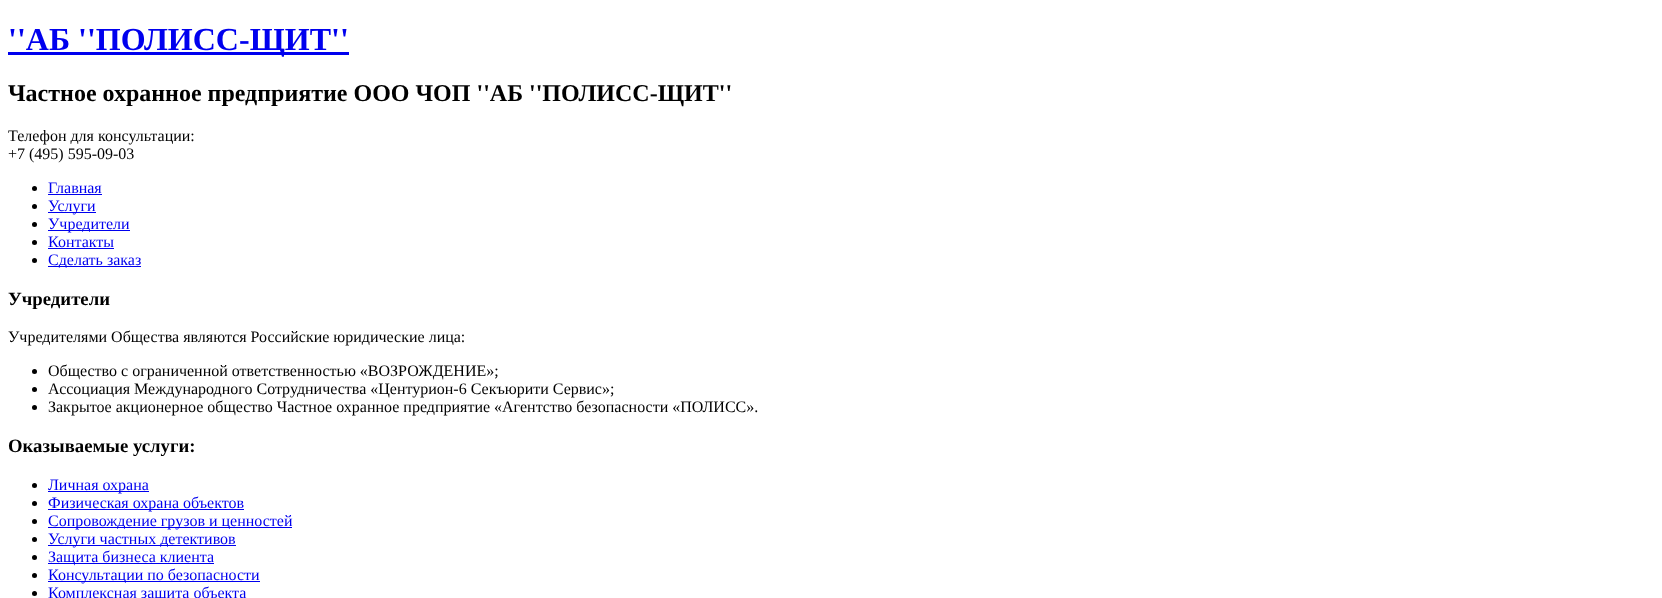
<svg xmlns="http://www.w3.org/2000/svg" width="1662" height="598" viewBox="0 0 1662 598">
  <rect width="100%" height="100%" fill="#ffffff"/>
  <rect x="8" y="52" width="341" height="3" fill="#0000ee"/>
  <text x="8" y="50" font-family="Liberation Serif" font-size="32" font-weight="bold" fill="#0000ee">''АБ ''ПОЛИСС-ЩИТ''</text>
  <text x="8" y="101" font-family="Liberation Serif" font-size="24" font-weight="bold" fill="#000000">Частное охранное предприятие ООО ЧОП ''АБ ''ПОЛИСС-ЩИТ''</text>
  <text x="8" y="141" font-family="Liberation Serif" font-size="16" fill="#000000">Телефон для консультации:</text>
  <text x="8" y="159" font-family="Liberation Serif" font-size="16" fill="#000000">+7 (495) 595-09-03</text>
  <circle cx="34.5" cy="188.5" r="2.5" fill="#000000"/>
  <text x="48" y="193" font-family="Liberation Serif" font-size="16" fill="#0000ee">Главная</text>
  <rect x="48" y="194" width="54" height="1" fill="#0000ee"/>
  <circle cx="34.5" cy="206.5" r="2.5" fill="#000000"/>
  <rect x="48" y="212" width="48" height="1" fill="#0000ee"/>
  <text x="48" y="211" font-family="Liberation Serif" font-size="16" fill="#0000ee">Услуги</text>
  <circle cx="34.5" cy="224.5" r="2.5" fill="#000000"/>
  <rect x="48" y="230" width="82" height="1" fill="#0000ee"/>
  <text x="48" y="229" font-family="Liberation Serif" font-size="16" fill="#0000ee">Учредители</text>
  <circle cx="34.5" cy="242.5" r="2.5" fill="#000000"/>
  <text x="48" y="247" font-family="Liberation Serif" font-size="16" fill="#0000ee">Контакты</text>
  <rect x="48" y="248" width="66" height="1" fill="#0000ee"/>
  <circle cx="34.5" cy="260.5" r="2.5" fill="#000000"/>
  <rect x="48" y="266" width="93" height="1" fill="#0000ee"/>
  <text x="48" y="265" font-family="Liberation Serif" font-size="16" fill="#0000ee">Сделать заказ</text>
  <text x="8" y="305" font-family="Liberation Serif" font-size="18.75" font-weight="bold" fill="#000000">Учредители</text>
  <text x="8" y="342" font-family="Liberation Serif" font-size="16" fill="#000000">Учредителями Общества являются Российские юридические лица:</text>
  <circle cx="34.5" cy="371.5" r="2.5" fill="#000000"/>
  <text x="48" y="376" font-family="Liberation Serif" font-size="16" fill="#000000">Общество с ограниченной ответственностью «ВОЗРОЖДЕНИЕ»;</text>
  <circle cx="34.5" cy="389.5" r="2.5" fill="#000000"/>
  <text x="48" y="394" font-family="Liberation Serif" font-size="16" fill="#000000">Ассоциация Международного Сотрудничества «Центурион-6 Секъюрити Сервис»;</text>
  <circle cx="34.5" cy="407.5" r="2.5" fill="#000000"/>
  <text x="48" y="412" font-family="Liberation Serif" font-size="16" fill="#000000">Закрытое акционерное общество Частное охранное предприятие «Агентство безопасности «ПОЛИСС».</text>
  <text x="8" y="452" font-family="Liberation Serif" font-size="18.75" font-weight="bold" fill="#000000">Оказываемые услуги:</text>
  <circle cx="34.5" cy="485.5" r="2.5" fill="#000000"/>
  <rect x="48" y="491" width="101" height="1" fill="#0000ee"/>
  <text x="48" y="490" font-family="Liberation Serif" font-size="16" fill="#0000ee">Личная охрана</text>
  <circle cx="34.5" cy="503.5" r="2.5" fill="#000000"/>
  <rect x="48" y="509" width="196" height="1" fill="#0000ee"/>
  <text x="48" y="508" font-family="Liberation Serif" font-size="16" fill="#0000ee">Физическая охрана объектов</text>
  <circle cx="34.5" cy="521.5" r="2.5" fill="#000000"/>
  <rect x="48" y="527" width="244" height="1" fill="#0000ee"/>
  <text x="48" y="526" font-family="Liberation Serif" font-size="16" fill="#0000ee">Сопровождение грузов и ценностей</text>
  <circle cx="34.5" cy="539.5" r="2.5" fill="#000000"/>
  <rect x="48" y="545" width="188" height="1" fill="#0000ee"/>
  <text x="48" y="544" font-family="Liberation Serif" font-size="16" fill="#0000ee">Услуги частных детективов</text>
  <circle cx="34.5" cy="557.5" r="2.5" fill="#000000"/>
  <rect x="48" y="563" width="166" height="1" fill="#0000ee"/>
  <text x="48" y="562" font-family="Liberation Serif" font-size="16" fill="#0000ee">Защита бизнеса клиента</text>
  <circle cx="34.5" cy="575.5" r="2.5" fill="#000000"/>
  <rect x="48" y="581" width="212" height="1" fill="#0000ee"/>
  <text x="48" y="580" font-family="Liberation Serif" font-size="16" fill="#0000ee">Консультации по безопасности</text>
  <circle cx="34.5" cy="593.5" r="2.5" fill="#000000"/>
  <text x="48" y="598" font-family="Liberation Serif" font-size="16" fill="#0000ee">Комплексная защита объекта</text>
</svg>
